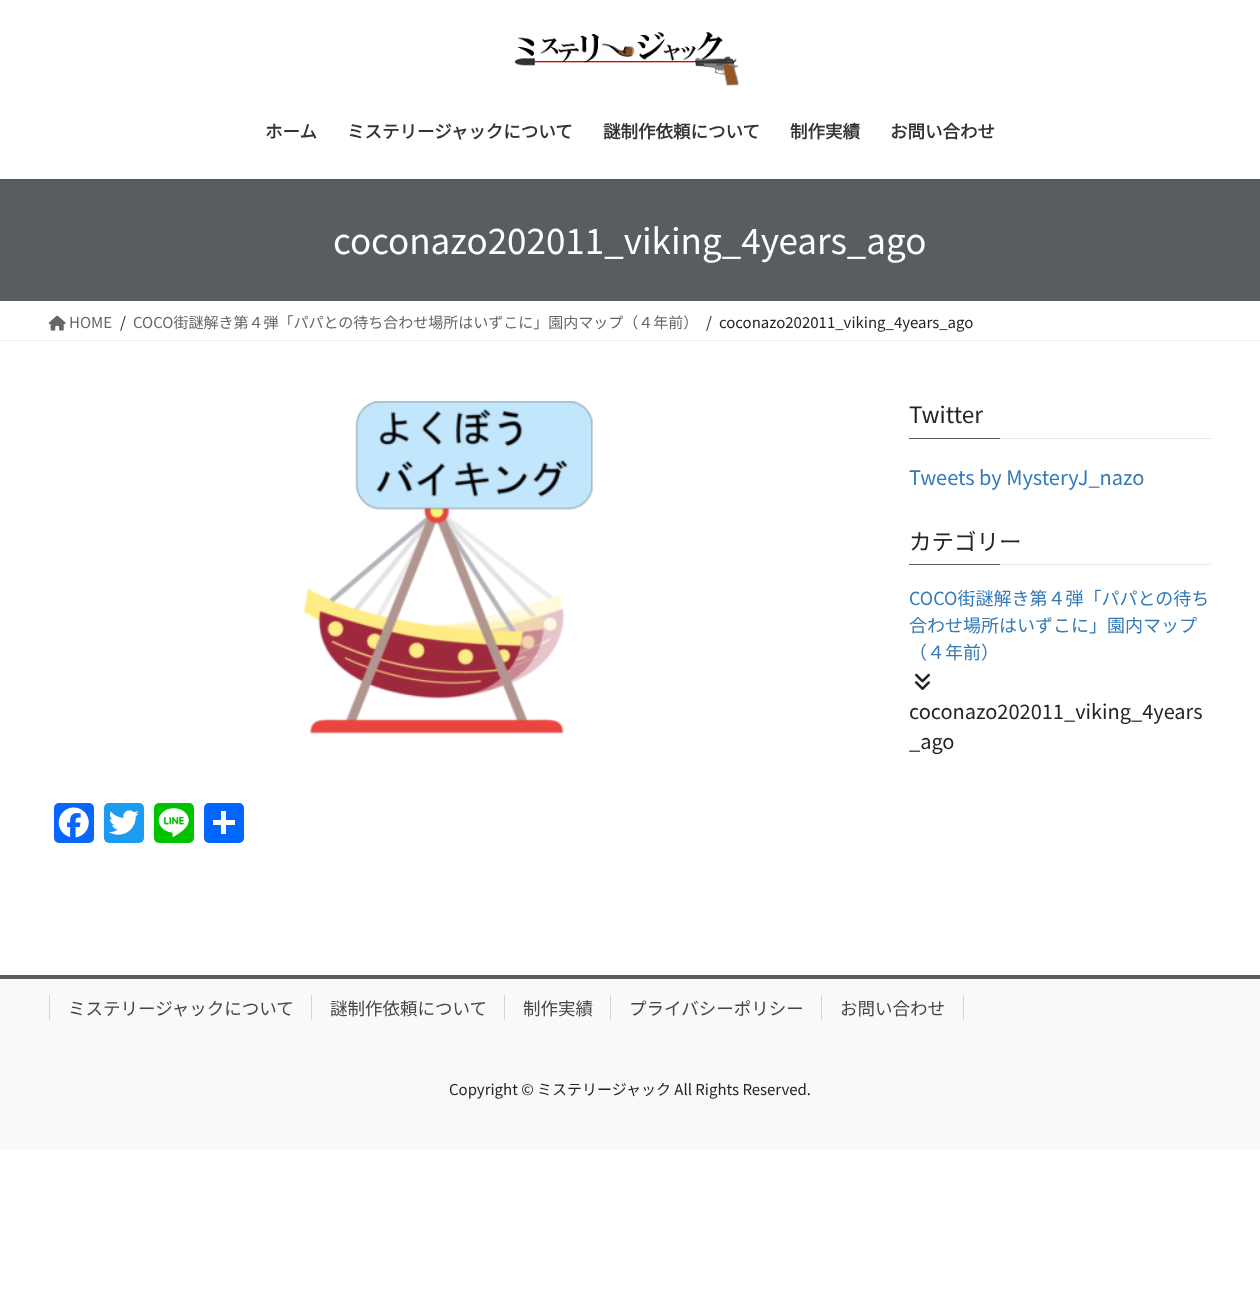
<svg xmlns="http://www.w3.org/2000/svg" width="1260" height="1306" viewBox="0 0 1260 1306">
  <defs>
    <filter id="blur1" x="-50%" y="-200%" width="200%" height="500%"><feGaussianBlur stdDeviation="2"/></filter>
  </defs>
  <rect width="100%" height="100%" fill="#ffffff"/>
  <rect x="0" y="179" width="1260" height="122" fill="#585d60"/>
  <rect x="0" y="1" width="1260" height="179" fill="#000000" fill-opacity="0.1" filter="url(#blur1)"/>
  <rect x="0" y="0" width="1260" height="179" fill="#ffffff"/>
  <image x="514" y="32" width="225" height="54" href="img1.png"/>
  <text x="265" y="138" font-family="Noto Sans JP" font-size="17.5" font-weight="bold" fill="#333333">ホーム</text>
  <text x="347" y="138" font-family="Noto Sans JP" font-size="17.5" font-weight="bold" fill="#333333">ミステリージャックについて</text>
  <text x="603" y="138" font-family="Noto Sans JP" font-size="17.5" font-weight="bold" fill="#333333">謎制作依頼について</text>
  <text x="790" y="138" font-family="Noto Sans JP" font-size="17.5" font-weight="bold" fill="#333333">制作実績</text>
  <text x="890" y="138" font-family="Noto Sans JP" font-size="17.5" font-weight="bold" fill="#333333">お問い合わせ</text>
  <text x="333" y="254" font-family="Noto Sans JP" font-size="35" fill="#ffffff">coconazo202011_viking_4years_ago</text>
  <rect x="0" y="340" width="1260" height="1" fill="#f2f2f2"/>
  <image x="48" y="315" width="18" height="16" href="img2.png"/>
  <text x="69" y="328" font-family="Noto Sans JP" font-size="15" fill="#666666">HOME</text>
  <text x="120" y="328" font-family="Noto Sans JP" font-size="15" fill="#212529">/</text>
  <text x="133" y="328" font-family="Noto Sans JP" font-size="15" fill="#666666">COCO街謎解き第４弾「パパとの待ち合わせ場所はいずこに」園内マップ（４年前）</text>
  <text x="706" y="328" font-family="Noto Sans JP" font-size="15" fill="#212529">/</text>
  <text x="719" y="328" font-family="Noto Sans JP" font-size="15" fill="#212529">coconazo202011_viking_4years_ago</text>
  <image x="303" y="401" width="290" height="333" href="img3.png"/>
  <rect x="54" y="803" width="40" height="40" rx="5" fill="#0866ff"/>
  <image x="58" y="807" width="31" height="31" href="img4.png"/>
  <rect x="104" y="803" width="40" height="40" rx="5" fill="#1d9bf0"/>
  <image x="109" y="810" width="30" height="25" href="img5.png"/>
  <rect x="154" y="803" width="40" height="40" rx="5" fill="#00c300"/>
  <image x="158" y="808" width="31" height="29" href="img6.png"/>
  <rect x="204" y="803" width="40" height="40" rx="5" fill="#0166ff"/>
  <rect x="221" y="811" width="5" height="23" fill="#ffffff"/>
  <rect x="213" y="820" width="22" height="5" fill="#ffffff"/>
  <rect x="1000" y="438" width="211" height="1" fill="#e6e6e6"/>
  <text x="909" y="423" font-family="Noto Sans JP" font-size="22.5" fill="#212529">Twitter</text>
  <rect x="909" y="438" width="91" height="1" fill="#585d60"/>
  <text x="909" y="485" font-family="Noto Sans JP" font-size="20" fill="#337ab7">Tweets by MysteryJ_nazo</text>
  <rect x="1000" y="564" width="211" height="1" fill="#e6e6e6"/>
  <text x="909" y="550" font-family="Noto Sans JP" font-size="22.5" fill="#212529">カテゴリー</text>
  <rect x="909" y="564" width="91" height="1" fill="#585d60"/>
  <text x="909" y="605" font-family="Noto Sans JP" font-size="18" fill="#337ab7">COCO街謎解き第４弾「パパとの待ち</text>
  <text x="909" y="632" font-family="Noto Sans JP" font-size="18" fill="#337ab7">合わせ場所はいずこに」園内マップ</text>
  <text x="909" y="659" font-family="Noto Sans JP" font-size="18" fill="#337ab7">（４年前）</text>
  <image x="915" y="673" width="15" height="17" href="img7.png"/>
  <text x="909" y="719" font-family="Noto Sans JP" font-size="20" fill="#212529">coconazo202011_viking_4years</text>
  <text x="909" y="749" font-family="Noto Sans JP" font-size="20" fill="#212529">_ago</text>
  <rect x="0" y="979" width="1260" height="171" fill="#f9f9f9"/>
  <rect x="0" y="975" width="1260" height="4" fill="#585d60"/>
  <text x="68" y="1015" font-family="Noto Sans JP" font-size="17.5" fill="#464646">ミステリージャックについて</text>
  <rect x="49" y="995" width="1" height="25" fill="#d4d4d4"/>
  <text x="330" y="1015" font-family="Noto Sans JP" font-size="17.5" fill="#464646">謎制作依頼について</text>
  <rect x="311" y="995" width="1" height="25" fill="#d4d4d4"/>
  <text x="523" y="1015" font-family="Noto Sans JP" font-size="17.5" fill="#464646">制作実績</text>
  <rect x="504" y="995" width="1" height="25" fill="#d4d4d4"/>
  <text x="629" y="1015" font-family="Noto Sans JP" font-size="17.5" fill="#464646">プライバシーポリシー</text>
  <rect x="610" y="995" width="1" height="25" fill="#d4d4d4"/>
  <text x="840" y="1015" font-family="Noto Sans JP" font-size="17.5" fill="#464646">お問い合わせ</text>
  <rect x="963" y="995" width="1" height="25" fill="#d4d4d4"/>
  <rect x="821" y="995" width="1" height="25" fill="#d4d4d4"/>
  <text x="449" y="1095" font-family="Noto Sans JP" font-size="15" fill="#212529">Copyright © ミステリージャック All Rights Reserved.</text>
</svg>
